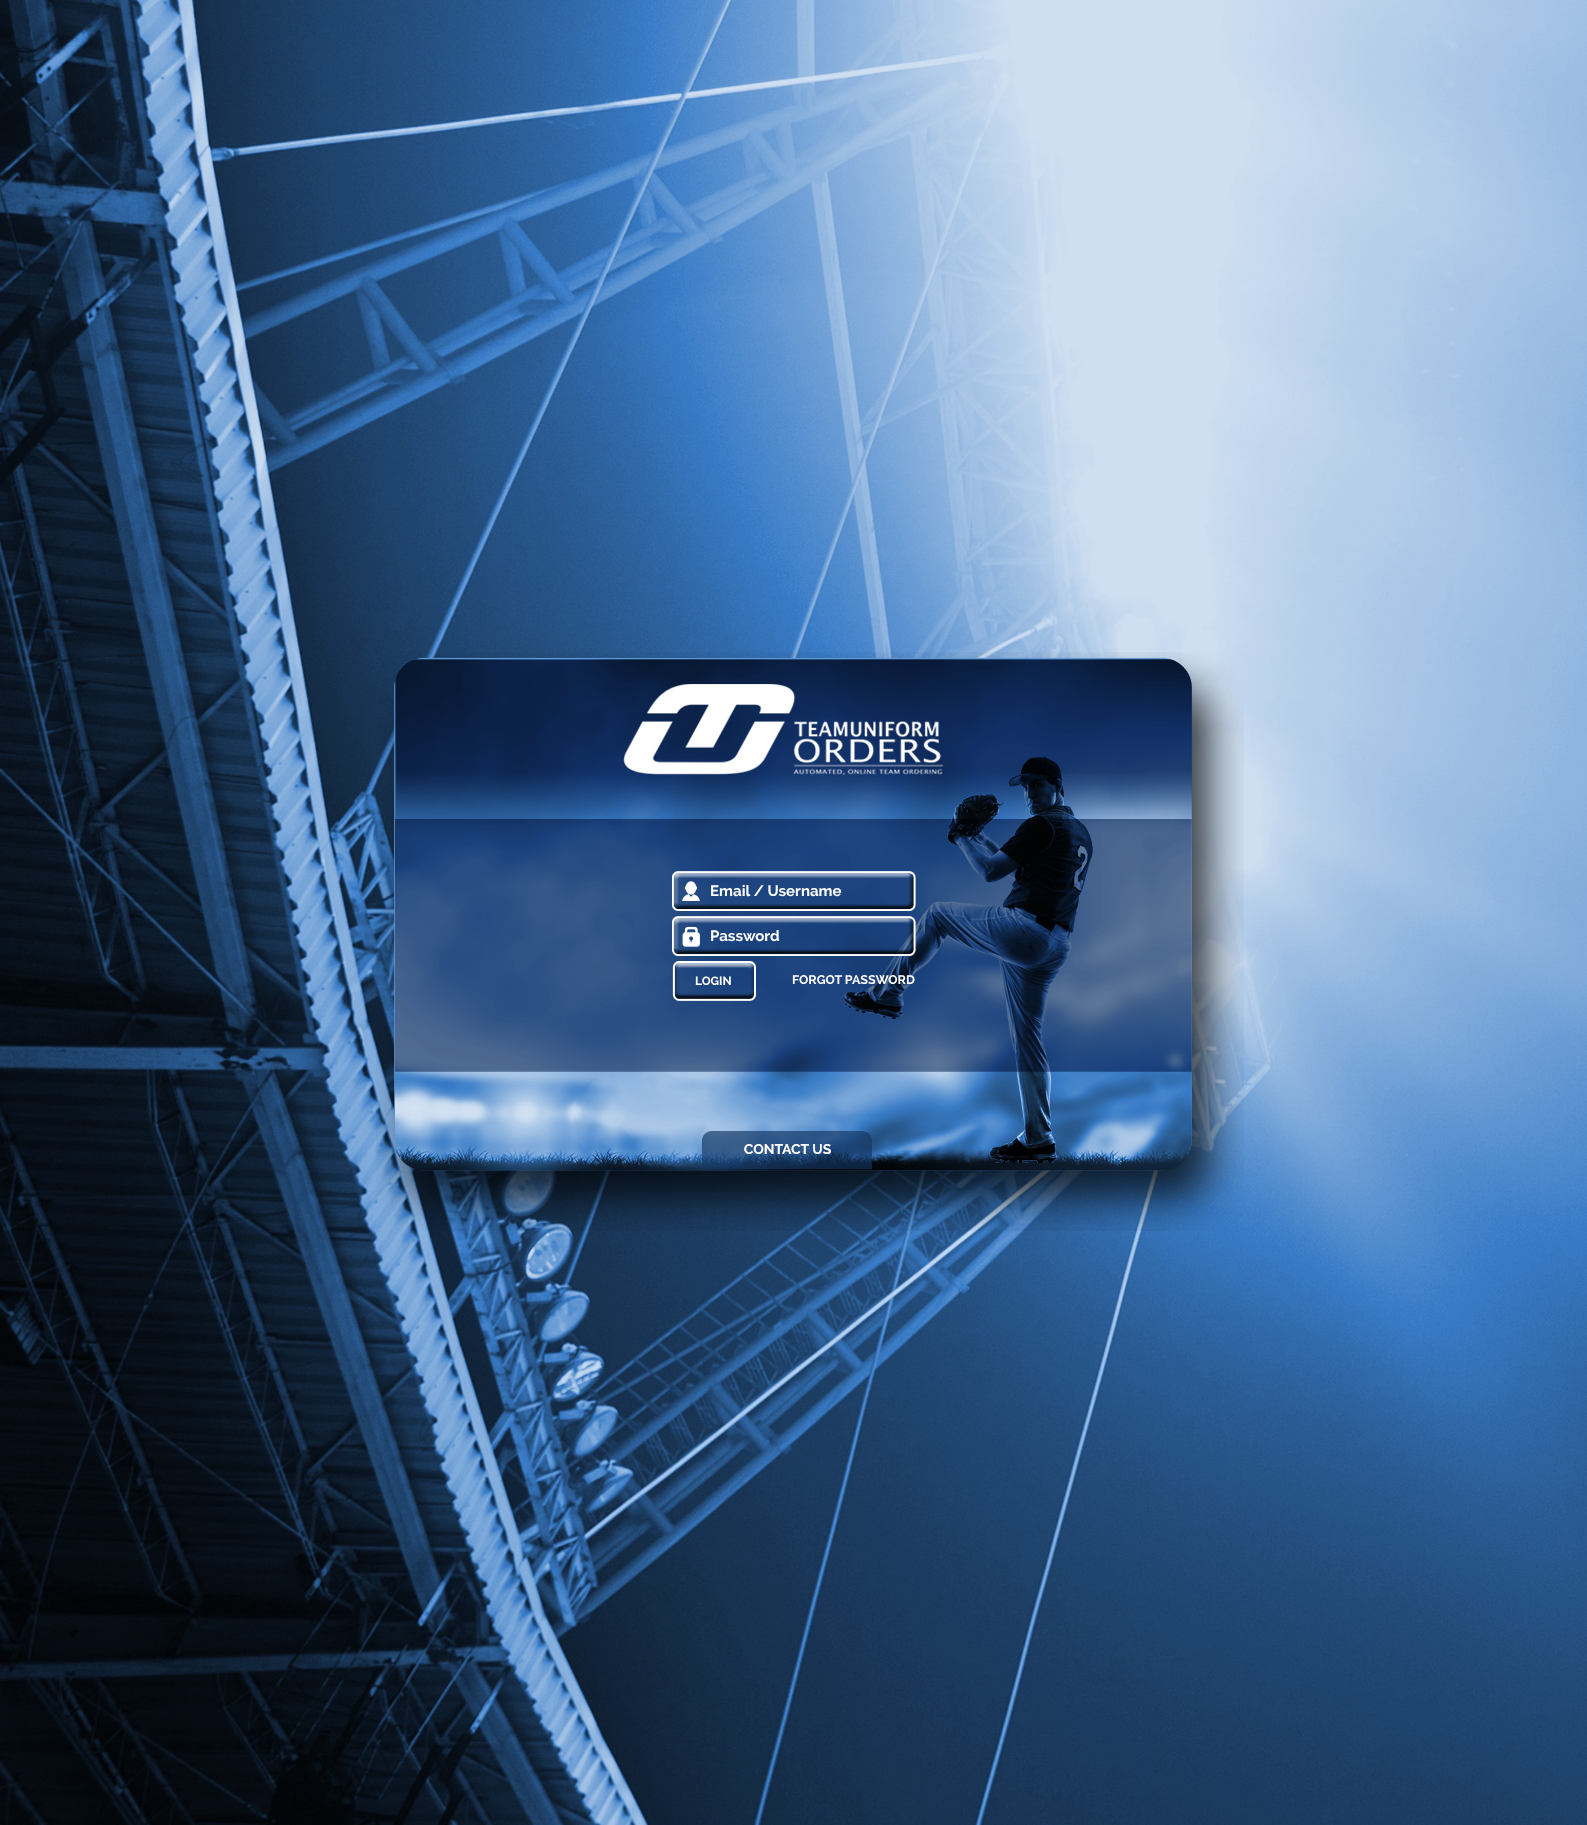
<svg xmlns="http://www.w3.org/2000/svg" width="1587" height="1825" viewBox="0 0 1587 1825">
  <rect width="100%" height="100%" fill="#ffffff"/>
  <image x="0" y="0" width="1587" height="1825" href="img1.png"/>
  <image x="376" y="652" width="868" height="579" href="img2.png"/>
  <image x="672" y="871" width="244" height="40" href="img3.png"/>
  <image x="682" y="881" width="18" height="20" href="img4.png"/>
  <text x="710" y="896" font-family="Raleway" font-size="15" font-weight="bold" fill="#ffffff">Email / Username</text>
  <image x="672" y="916" width="244" height="40" href="img5.png"/>
  <image x="682" y="926" width="18" height="21" href="img6.png"/>
  <text x="710" y="941" font-family="Raleway" font-size="15" font-weight="bold" fill="#ffffff">Password</text>
  <image x="672" y="961" width="84" height="40" href="img7.png"/>
  <text x="695" y="985" font-family="Raleway" font-size="12" font-weight="bold" fill="#ffffff">LOGIN</text>
  <text x="792" y="984" font-family="Raleway" font-size="12.5" font-weight="bold" fill="#ffffff">FORGOT PASSWORD</text>
</svg>
